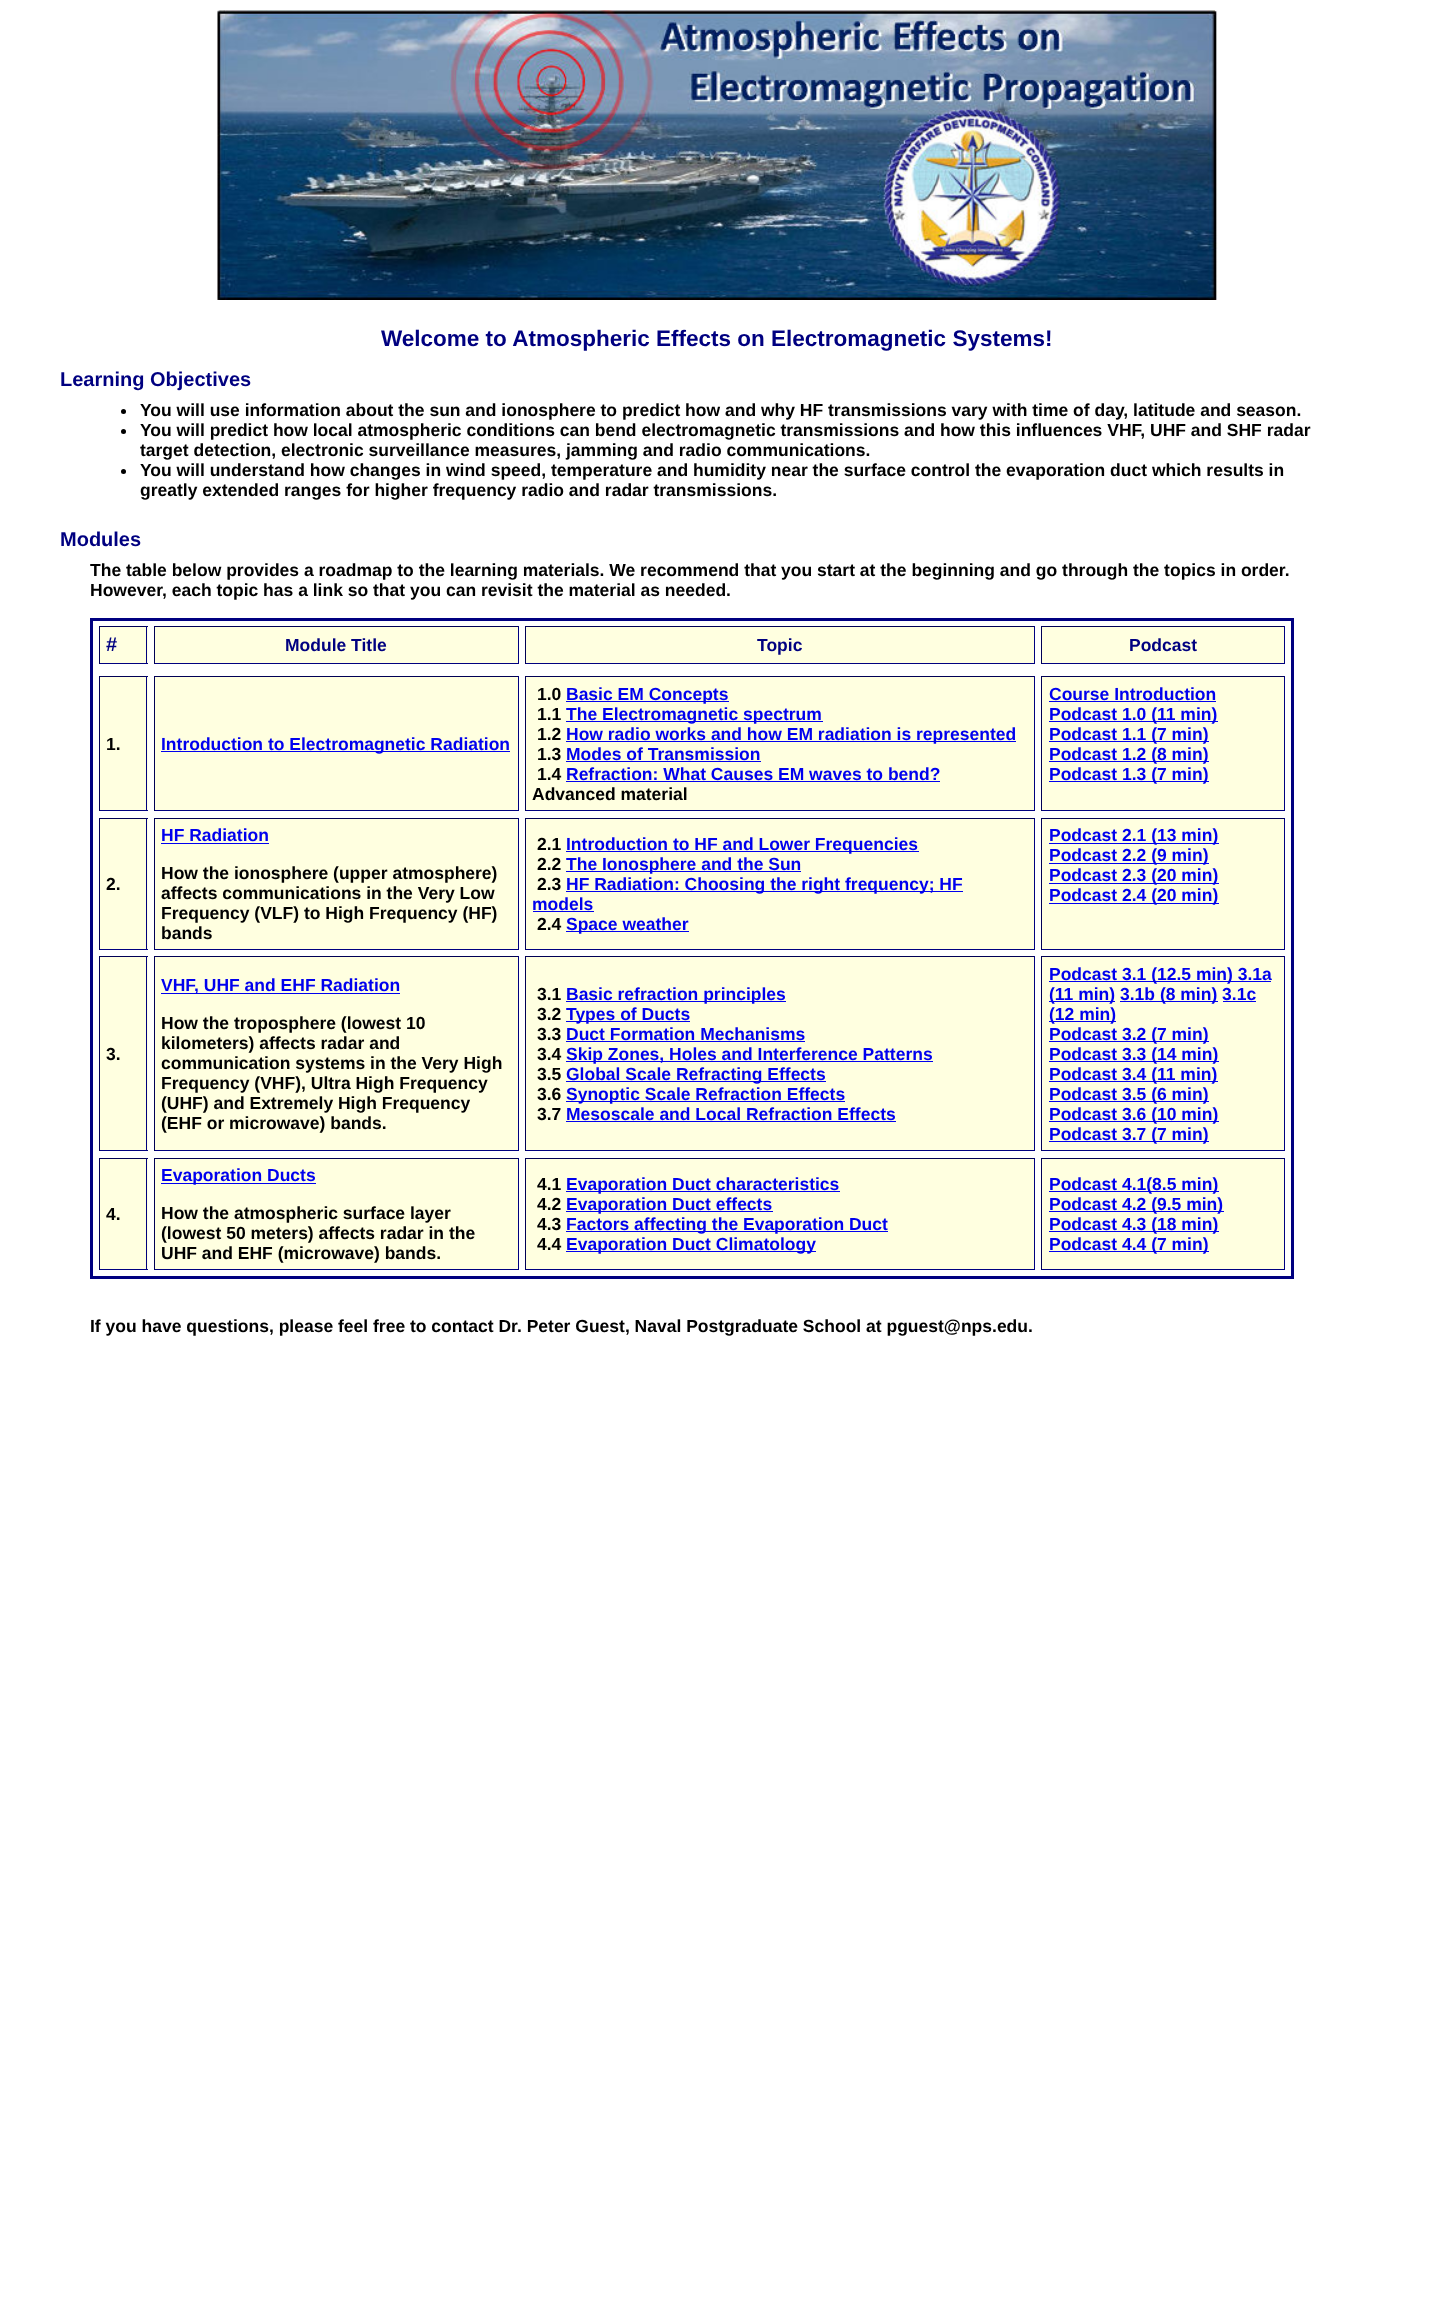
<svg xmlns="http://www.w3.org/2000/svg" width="1433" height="2320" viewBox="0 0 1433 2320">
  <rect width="100%" height="100%" fill="#ffffff"/>
  <image x="217" y="10" width="1001" height="290" href="img1.png"/>
  <text x="381" y="346" font-family="Liberation Sans" font-size="22.5" font-weight="bold" fill="#000080">Welcome to Atmospheric Effects on Electromagnetic Systems!</text>
  <text x="60" y="386" font-family="Liberation Sans" font-size="20" font-weight="bold" fill="#000080">Learning Objectives</text>
  <circle cx="123.5" cy="411.5" r="2.5" fill="#000000"/>
  <text x="140" y="416" font-family="Liberation Sans" font-size="17.5" font-weight="bold" fill="#000000">You will use information about the sun and ionosphere to predict how and why HF transmissions vary with time of day, latitude and season.</text>
  <circle cx="123.5" cy="431.5" r="2.5" fill="#000000"/>
  <text x="140" y="436" font-family="Liberation Sans" font-size="17.5" font-weight="bold" fill="#000000">You will predict how local atmospheric conditions can bend electromagnetic transmissions and how this influences VHF, UHF and SHF radar</text>
  <text x="140" y="456" font-family="Liberation Sans" font-size="17.5" font-weight="bold" fill="#000000">target detection, electronic surveillance measures, jamming and radio communications.</text>
  <circle cx="123.5" cy="471.5" r="2.5" fill="#000000"/>
  <text x="140" y="476" font-family="Liberation Sans" font-size="17.5" font-weight="bold" fill="#000000">You will understand how changes in wind speed, temperature and humidity near the surface control the evaporation duct which results in</text>
  <text x="140" y="496" font-family="Liberation Sans" font-size="17.5" font-weight="bold" fill="#000000">greatly extended ranges for higher frequency radio and radar transmissions.</text>
  <text x="60" y="546" font-family="Liberation Sans" font-size="20" font-weight="bold" fill="#000080">Modules</text>
  <text x="90" y="576" font-family="Liberation Sans" font-size="17.5" font-weight="bold" fill="#000000">The table below provides a roadmap to the learning materials. We recommend that you start at the beginning and go through the topics in order.</text>
  <text x="90" y="596" font-family="Liberation Sans" font-size="17.5" font-weight="bold" fill="#000000">However, each topic has a link so that you can revisit the material as needed.</text>
  <rect x="91.5" y="619.5" width="1201" height="658" fill="none" stroke="#000080" stroke-width="3"/>
  <rect x="100" y="627" width="48" height="36" fill="#ffffe0"/>
  <rect x="99" y="626" width="49" height="1" fill="#000055"/>
  <rect x="146" y="626" width="1" height="38" fill="#000080"/>
  <rect x="99" y="663" width="49" height="1" fill="#000080"/>
  <rect x="99" y="626" width="1" height="38" fill="#000055"/>
  <text x="106" y="651" font-family="Liberation Sans" font-size="20" font-weight="bold" fill="#000080">#</text>
  <rect x="155" y="627" width="363" height="36" fill="#ffffe0"/>
  <rect x="154" y="626" width="365" height="1" fill="#000055"/>
  <rect x="518" y="626" width="1" height="38" fill="#000080"/>
  <rect x="154" y="663" width="365" height="1" fill="#000080"/>
  <rect x="154" y="626" width="1" height="38" fill="#000055"/>
  <text x="285" y="651" font-family="Liberation Sans" font-size="17.5" font-weight="bold" fill="#000080">Module Title</text>
  <rect x="526" y="627" width="508" height="36" fill="#ffffe0"/>
  <rect x="525" y="626" width="510" height="1" fill="#000055"/>
  <rect x="1034" y="626" width="1" height="38" fill="#000080"/>
  <rect x="525" y="663" width="510" height="1" fill="#000080"/>
  <rect x="525" y="626" width="1" height="38" fill="#000055"/>
  <text x="757" y="651" font-family="Liberation Sans" font-size="17.5" font-weight="bold" fill="#000080">Topic</text>
  <rect x="1042" y="627" width="242" height="36" fill="#ffffe0"/>
  <rect x="1041" y="626" width="244" height="1" fill="#000055"/>
  <rect x="1284" y="626" width="1" height="38" fill="#000080"/>
  <rect x="1041" y="663" width="244" height="1" fill="#000080"/>
  <rect x="1041" y="626" width="1" height="38" fill="#000055"/>
  <text x="1129" y="651" font-family="Liberation Sans" font-size="17.5" font-weight="bold" fill="#000080">Podcast</text>
  <rect x="100" y="677" width="48" height="133" fill="#ffffe0"/>
  <rect x="99" y="676" width="49" height="1" fill="#000055"/>
  <rect x="146" y="676" width="1" height="135" fill="#000080"/>
  <rect x="99" y="810" width="49" height="1" fill="#000080"/>
  <rect x="99" y="676" width="1" height="135" fill="#000055"/>
  <text x="106" y="750" font-family="Liberation Sans" font-size="17.5" font-weight="bold" fill="#000000">1.</text>
  <rect x="155" y="677" width="363" height="133" fill="#ffffe0"/>
  <rect x="154" y="676" width="365" height="1" fill="#000055"/>
  <rect x="518" y="676" width="1" height="135" fill="#000080"/>
  <rect x="154" y="810" width="365" height="1" fill="#000080"/>
  <rect x="154" y="676" width="1" height="135" fill="#000055"/>
  <rect x="161" y="751" width="349" height="1" fill="#0000ee"/>
  <text x="161" y="750" font-family="Liberation Sans" font-size="17.5" font-weight="bold" fill="#0000ee">Introduction to Electromagnetic Radiation</text>
  <rect x="526" y="677" width="508" height="133" fill="#ffffe0"/>
  <rect x="525" y="676" width="510" height="1" fill="#000055"/>
  <rect x="1034" y="676" width="1" height="135" fill="#000080"/>
  <rect x="525" y="810" width="510" height="1" fill="#000080"/>
  <rect x="525" y="676" width="1" height="135" fill="#000055"/>
  <text x="537" y="700" font-family="Liberation Sans" font-size="17.5" font-weight="bold" fill="#000000">1.0</text>
  <rect x="566" y="701" width="163" height="1" fill="#0000ee"/>
  <text x="566" y="700" font-family="Liberation Sans" font-size="17.5" font-weight="bold" fill="#0000ee">Basic EM Concepts</text>
  <text x="537" y="720" font-family="Liberation Sans" font-size="17.5" font-weight="bold" fill="#000000">1.1</text>
  <rect x="566" y="721" width="257" height="1" fill="#0000ee"/>
  <text x="566" y="720" font-family="Liberation Sans" font-size="17.5" font-weight="bold" fill="#0000ee">The Electromagnetic spectrum</text>
  <text x="537" y="740" font-family="Liberation Sans" font-size="17.5" font-weight="bold" fill="#000000">1.2</text>
  <rect x="566" y="741" width="450" height="1" fill="#0000ee"/>
  <text x="566" y="740" font-family="Liberation Sans" font-size="17.5" font-weight="bold" fill="#0000ee">How radio works and how EM radiation is represented</text>
  <text x="537" y="760" font-family="Liberation Sans" font-size="17.5" font-weight="bold" fill="#000000">1.3</text>
  <text x="566" y="760" font-family="Liberation Sans" font-size="17.5" font-weight="bold" fill="#0000ee">Modes of Transmission</text>
  <rect x="566" y="761" width="195" height="1" fill="#0000ee"/>
  <text x="537" y="780" font-family="Liberation Sans" font-size="17.5" font-weight="bold" fill="#000000">1.4</text>
  <text x="566" y="780" font-family="Liberation Sans" font-size="17.5" font-weight="bold" fill="#0000ee">Refraction: What Causes EM waves to bend?</text>
  <rect x="566" y="781" width="374" height="1" fill="#0000ee"/>
  <text x="532" y="800" font-family="Liberation Sans" font-size="17.5" font-weight="bold" fill="#000000">Advanced material</text>
  <rect x="1042" y="677" width="242" height="133" fill="#ffffe0"/>
  <rect x="1041" y="676" width="244" height="1" fill="#000055"/>
  <rect x="1284" y="676" width="1" height="135" fill="#000080"/>
  <rect x="1041" y="810" width="244" height="1" fill="#000080"/>
  <rect x="1041" y="676" width="1" height="135" fill="#000055"/>
  <text x="1049" y="700" font-family="Liberation Sans" font-size="17.5" font-weight="bold" fill="#0000ee">Course Introduction</text>
  <rect x="1049" y="701" width="167" height="1" fill="#0000ee"/>
  <rect x="1049" y="721" width="169" height="1" fill="#0000ee"/>
  <text x="1049" y="720" font-family="Liberation Sans" font-size="17.5" font-weight="bold" fill="#0000ee">Podcast 1.0 (11 min)</text>
  <rect x="1049" y="741" width="160" height="1" fill="#0000ee"/>
  <text x="1049" y="740" font-family="Liberation Sans" font-size="17.5" font-weight="bold" fill="#0000ee">Podcast 1.1 (7 min)</text>
  <rect x="1049" y="761" width="160" height="1" fill="#0000ee"/>
  <text x="1049" y="760" font-family="Liberation Sans" font-size="17.5" font-weight="bold" fill="#0000ee">Podcast 1.2 (8 min)</text>
  <rect x="1049" y="781" width="160" height="1" fill="#0000ee"/>
  <text x="1049" y="780" font-family="Liberation Sans" font-size="17.5" font-weight="bold" fill="#0000ee">Podcast 1.3 (7 min)</text>
  <rect x="100" y="819" width="48" height="130" fill="#ffffe0"/>
  <rect x="99" y="818" width="49" height="1" fill="#000055"/>
  <rect x="146" y="818" width="1" height="132" fill="#000080"/>
  <rect x="99" y="949" width="49" height="1" fill="#000080"/>
  <rect x="99" y="818" width="1" height="132" fill="#000055"/>
  <text x="106" y="890" font-family="Liberation Sans" font-size="17.5" font-weight="bold" fill="#000000">2.</text>
  <rect x="155" y="819" width="363" height="130" fill="#ffffe0"/>
  <rect x="154" y="818" width="365" height="1" fill="#000055"/>
  <rect x="518" y="818" width="1" height="132" fill="#000080"/>
  <rect x="154" y="949" width="365" height="1" fill="#000080"/>
  <rect x="154" y="818" width="1" height="132" fill="#000055"/>
  <text x="161" y="841" font-family="Liberation Sans" font-size="17.5" font-weight="bold" fill="#0000ee">HF Radiation</text>
  <rect x="161" y="843" width="108" height="1" fill="#0000ee"/>
  <text x="161" y="879" font-family="Liberation Sans" font-size="17.5" font-weight="bold" fill="#000000">How the ionosphere (upper atmosphere)</text>
  <text x="161" y="899" font-family="Liberation Sans" font-size="17.5" font-weight="bold" fill="#000000">affects communications in the Very Low</text>
  <text x="161" y="919" font-family="Liberation Sans" font-size="17.5" font-weight="bold" fill="#000000">Frequency (VLF) to High Frequency (HF)</text>
  <text x="161" y="939" font-family="Liberation Sans" font-size="17.5" font-weight="bold" fill="#000000">bands</text>
  <rect x="526" y="819" width="508" height="130" fill="#ffffe0"/>
  <rect x="525" y="818" width="510" height="1" fill="#000055"/>
  <rect x="1034" y="818" width="1" height="132" fill="#000080"/>
  <rect x="525" y="949" width="510" height="1" fill="#000080"/>
  <rect x="525" y="818" width="1" height="132" fill="#000055"/>
  <text x="537" y="850" font-family="Liberation Sans" font-size="17.5" font-weight="bold" fill="#000000">2.1</text>
  <rect x="566" y="851" width="353" height="1" fill="#0000ee"/>
  <text x="566" y="850" font-family="Liberation Sans" font-size="17.5" font-weight="bold" fill="#0000ee">Introduction to HF and Lower Frequencies</text>
  <text x="537" y="870" font-family="Liberation Sans" font-size="17.5" font-weight="bold" fill="#000000">2.2</text>
  <rect x="566" y="871" width="235" height="1" fill="#0000ee"/>
  <text x="566" y="870" font-family="Liberation Sans" font-size="17.5" font-weight="bold" fill="#0000ee">The Ionosphere and the Sun</text>
  <text x="537" y="890" font-family="Liberation Sans" font-size="17.5" font-weight="bold" fill="#000000">2.3</text>
  <rect x="566" y="891" width="397" height="1" fill="#0000ee"/>
  <text x="566" y="890" font-family="Liberation Sans" font-size="17.5" font-weight="bold" fill="#0000ee">HF Radiation: Choosing the right frequency; HF</text>
  <text x="532" y="910" font-family="Liberation Sans" font-size="17.5" font-weight="bold" fill="#0000ee">models</text>
  <rect x="533" y="911" width="61" height="1" fill="#0000ee"/>
  <text x="537" y="930" font-family="Liberation Sans" font-size="17.5" font-weight="bold" fill="#000000">2.4</text>
  <rect x="566" y="931" width="123" height="1" fill="#0000ee"/>
  <text x="566" y="930" font-family="Liberation Sans" font-size="17.5" font-weight="bold" fill="#0000ee">Space weather</text>
  <rect x="1042" y="819" width="242" height="130" fill="#ffffe0"/>
  <rect x="1041" y="818" width="244" height="1" fill="#000055"/>
  <rect x="1284" y="818" width="1" height="132" fill="#000080"/>
  <rect x="1041" y="949" width="244" height="1" fill="#000080"/>
  <rect x="1041" y="818" width="1" height="132" fill="#000055"/>
  <rect x="1049" y="843" width="170" height="1" fill="#0000ee"/>
  <text x="1049" y="841" font-family="Liberation Sans" font-size="17.5" font-weight="bold" fill="#0000ee">Podcast 2.1 (13 min)</text>
  <rect x="1049" y="863" width="160" height="1" fill="#0000ee"/>
  <text x="1049" y="861" font-family="Liberation Sans" font-size="17.5" font-weight="bold" fill="#0000ee">Podcast 2.2 (9 min)</text>
  <rect x="1049" y="883" width="170" height="1" fill="#0000ee"/>
  <text x="1049" y="881" font-family="Liberation Sans" font-size="17.5" font-weight="bold" fill="#0000ee">Podcast 2.3 (20 min)</text>
  <rect x="1049" y="903" width="170" height="1" fill="#0000ee"/>
  <text x="1049" y="901" font-family="Liberation Sans" font-size="17.5" font-weight="bold" fill="#0000ee">Podcast 2.4 (20 min)</text>
  <rect x="100" y="957" width="48" height="193" fill="#ffffe0"/>
  <rect x="99" y="956" width="49" height="1" fill="#000055"/>
  <rect x="146" y="956" width="1" height="195" fill="#000080"/>
  <rect x="99" y="1150" width="49" height="1" fill="#000080"/>
  <rect x="99" y="956" width="1" height="195" fill="#000055"/>
  <text x="106" y="1060" font-family="Liberation Sans" font-size="17.5" font-weight="bold" fill="#000000">3.</text>
  <rect x="155" y="957" width="363" height="193" fill="#ffffe0"/>
  <rect x="154" y="956" width="365" height="1" fill="#000055"/>
  <rect x="518" y="956" width="1" height="195" fill="#000080"/>
  <rect x="154" y="1150" width="365" height="1" fill="#000080"/>
  <rect x="154" y="956" width="1" height="195" fill="#000055"/>
  <rect x="161" y="993" width="239" height="1" fill="#0000ee"/>
  <text x="161" y="991" font-family="Liberation Sans" font-size="17.5" font-weight="bold" fill="#0000ee">VHF, UHF and EHF Radiation</text>
  <text x="161" y="1029" font-family="Liberation Sans" font-size="17.5" font-weight="bold" fill="#000000">How the troposphere (lowest 10</text>
  <text x="161" y="1049" font-family="Liberation Sans" font-size="17.5" font-weight="bold" fill="#000000">kilometers) affects radar and</text>
  <text x="161" y="1069" font-family="Liberation Sans" font-size="17.5" font-weight="bold" fill="#000000">communication systems in the Very High</text>
  <text x="161" y="1089" font-family="Liberation Sans" font-size="17.5" font-weight="bold" fill="#000000">Frequency (VHF), Ultra High Frequency</text>
  <text x="161" y="1109" font-family="Liberation Sans" font-size="17.5" font-weight="bold" fill="#000000">(UHF) and Extremely High Frequency</text>
  <text x="161" y="1129" font-family="Liberation Sans" font-size="17.5" font-weight="bold" fill="#000000">(EHF or microwave) bands.</text>
  <rect x="526" y="957" width="508" height="193" fill="#ffffe0"/>
  <rect x="525" y="956" width="510" height="1" fill="#000055"/>
  <rect x="1034" y="956" width="1" height="195" fill="#000080"/>
  <rect x="525" y="1150" width="510" height="1" fill="#000080"/>
  <rect x="525" y="956" width="1" height="195" fill="#000055"/>
  <text x="537" y="1000" font-family="Liberation Sans" font-size="17.5" font-weight="bold" fill="#000000">3.1</text>
  <rect x="566" y="1001" width="220" height="1" fill="#0000ee"/>
  <text x="566" y="1000" font-family="Liberation Sans" font-size="17.5" font-weight="bold" fill="#0000ee">Basic refraction principles</text>
  <text x="537" y="1020" font-family="Liberation Sans" font-size="17.5" font-weight="bold" fill="#000000">3.2</text>
  <rect x="566" y="1021" width="124" height="1" fill="#0000ee"/>
  <text x="566" y="1020" font-family="Liberation Sans" font-size="17.5" font-weight="bold" fill="#0000ee">Types of Ducts</text>
  <text x="537" y="1040" font-family="Liberation Sans" font-size="17.5" font-weight="bold" fill="#000000">3.3</text>
  <text x="566" y="1040" font-family="Liberation Sans" font-size="17.5" font-weight="bold" fill="#0000ee">Duct Formation Mechanisms</text>
  <rect x="566" y="1041" width="239" height="1" fill="#0000ee"/>
  <text x="537" y="1060" font-family="Liberation Sans" font-size="17.5" font-weight="bold" fill="#000000">3.4</text>
  <rect x="566" y="1061" width="367" height="1" fill="#0000ee"/>
  <text x="566" y="1060" font-family="Liberation Sans" font-size="17.5" font-weight="bold" fill="#0000ee">Skip Zones, Holes and Interference Patterns</text>
  <text x="537" y="1080" font-family="Liberation Sans" font-size="17.5" font-weight="bold" fill="#000000">3.5</text>
  <rect x="566" y="1081" width="260" height="1" fill="#0000ee"/>
  <text x="566" y="1080" font-family="Liberation Sans" font-size="17.5" font-weight="bold" fill="#0000ee">Global Scale Refracting Effects</text>
  <text x="537" y="1100" font-family="Liberation Sans" font-size="17.5" font-weight="bold" fill="#000000">3.6</text>
  <rect x="566" y="1101" width="279" height="1" fill="#0000ee"/>
  <text x="566" y="1100" font-family="Liberation Sans" font-size="17.5" font-weight="bold" fill="#0000ee">Synoptic Scale Refraction Effects</text>
  <text x="537" y="1120" font-family="Liberation Sans" font-size="17.5" font-weight="bold" fill="#000000">3.7</text>
  <text x="566" y="1120" font-family="Liberation Sans" font-size="17.5" font-weight="bold" fill="#0000ee">Mesoscale and Local Refraction Effects</text>
  <rect x="566" y="1121" width="330" height="1" fill="#0000ee"/>
  <rect x="1042" y="957" width="242" height="193" fill="#ffffe0"/>
  <rect x="1041" y="956" width="244" height="1" fill="#000055"/>
  <rect x="1284" y="956" width="1" height="195" fill="#000080"/>
  <rect x="1041" y="1150" width="244" height="1" fill="#000080"/>
  <rect x="1041" y="956" width="1" height="195" fill="#000055"/>
  <rect x="1049" y="981" width="222" height="1" fill="#0000ee"/>
  <text x="1049" y="980" font-family="Liberation Sans" font-size="17.5" font-weight="bold" fill="#0000ee">Podcast 3.1 (12.5 min) 3.1a</text>
  <rect x="1049" y="1001" width="66" height="1" fill="#0000ee"/>
  <text x="1049" y="1000" font-family="Liberation Sans" font-size="17.5" font-weight="bold" fill="#0000ee">(11 min)</text>
  <rect x="1120" y="1001" width="98" height="1" fill="#0000ee"/>
  <text x="1120" y="1000" font-family="Liberation Sans" font-size="17.5" font-weight="bold" fill="#0000ee">3.1b (8 min) 3.1c</text>
  <rect x="1049" y="1021" width="67" height="1" fill="#0000ee"/>
  <text x="1049" y="1020" font-family="Liberation Sans" font-size="17.5" font-weight="bold" fill="#0000ee">(12 min)</text>
  <rect x="1223" y="1001" width="33" height="1" fill="#0000ee"/>
  <rect x="1049" y="1041" width="160" height="1" fill="#0000ee"/>
  <text x="1049" y="1040" font-family="Liberation Sans" font-size="17.5" font-weight="bold" fill="#0000ee">Podcast 3.2 (7 min)</text>
  <rect x="1049" y="1061" width="170" height="1" fill="#0000ee"/>
  <text x="1049" y="1060" font-family="Liberation Sans" font-size="17.5" font-weight="bold" fill="#0000ee">Podcast 3.3 (14 min)</text>
  <rect x="1049" y="1081" width="169" height="1" fill="#0000ee"/>
  <text x="1049" y="1080" font-family="Liberation Sans" font-size="17.5" font-weight="bold" fill="#0000ee">Podcast 3.4 (11 min)</text>
  <rect x="1049" y="1101" width="160" height="1" fill="#0000ee"/>
  <text x="1049" y="1100" font-family="Liberation Sans" font-size="17.5" font-weight="bold" fill="#0000ee">Podcast 3.5 (6 min)</text>
  <rect x="1049" y="1121" width="170" height="1" fill="#0000ee"/>
  <text x="1049" y="1120" font-family="Liberation Sans" font-size="17.5" font-weight="bold" fill="#0000ee">Podcast 3.6 (10 min)</text>
  <rect x="1049" y="1141" width="160" height="1" fill="#0000ee"/>
  <text x="1049" y="1140" font-family="Liberation Sans" font-size="17.5" font-weight="bold" fill="#0000ee">Podcast 3.7 (7 min)</text>
  <rect x="100" y="1159" width="48" height="110" fill="#ffffe0"/>
  <rect x="99" y="1158" width="49" height="1" fill="#000055"/>
  <rect x="146" y="1158" width="1" height="112" fill="#000080"/>
  <rect x="99" y="1269" width="49" height="1" fill="#000080"/>
  <rect x="99" y="1158" width="1" height="112" fill="#000055"/>
  <text x="106" y="1220" font-family="Liberation Sans" font-size="17.5" font-weight="bold" fill="#000000">4.</text>
  <rect x="155" y="1159" width="363" height="110" fill="#ffffe0"/>
  <rect x="154" y="1158" width="365" height="1" fill="#000055"/>
  <rect x="518" y="1158" width="1" height="112" fill="#000080"/>
  <rect x="154" y="1269" width="365" height="1" fill="#000080"/>
  <rect x="154" y="1158" width="1" height="112" fill="#000055"/>
  <rect x="161" y="1183" width="155" height="1" fill="#0000ee"/>
  <text x="161" y="1181" font-family="Liberation Sans" font-size="17.5" font-weight="bold" fill="#0000ee">Evaporation Ducts</text>
  <text x="161" y="1219" font-family="Liberation Sans" font-size="17.5" font-weight="bold" fill="#000000">How the atmospheric surface layer</text>
  <text x="161" y="1239" font-family="Liberation Sans" font-size="17.5" font-weight="bold" fill="#000000">(lowest 50 meters) affects radar in the</text>
  <text x="161" y="1259" font-family="Liberation Sans" font-size="17.5" font-weight="bold" fill="#000000">UHF and EHF (microwave) bands.</text>
  <rect x="526" y="1159" width="508" height="110" fill="#ffffe0"/>
  <rect x="525" y="1158" width="510" height="1" fill="#000055"/>
  <rect x="1034" y="1158" width="1" height="112" fill="#000080"/>
  <rect x="525" y="1269" width="510" height="1" fill="#000080"/>
  <rect x="525" y="1158" width="1" height="112" fill="#000055"/>
  <text x="537" y="1190" font-family="Liberation Sans" font-size="17.5" font-weight="bold" fill="#000000">4.1</text>
  <rect x="566" y="1191" width="274" height="1" fill="#0000ee"/>
  <text x="566" y="1190" font-family="Liberation Sans" font-size="17.5" font-weight="bold" fill="#0000ee">Evaporation Duct characteristics</text>
  <text x="537" y="1210" font-family="Liberation Sans" font-size="17.5" font-weight="bold" fill="#000000">4.2</text>
  <rect x="566" y="1211" width="207" height="1" fill="#0000ee"/>
  <text x="566" y="1210" font-family="Liberation Sans" font-size="17.5" font-weight="bold" fill="#0000ee">Evaporation Duct effects</text>
  <text x="537" y="1230" font-family="Liberation Sans" font-size="17.5" font-weight="bold" fill="#000000">4.3</text>
  <rect x="566" y="1231" width="322" height="1" fill="#0000ee"/>
  <text x="566" y="1230" font-family="Liberation Sans" font-size="17.5" font-weight="bold" fill="#0000ee">Factors affecting the Evaporation Duct</text>
  <text x="537" y="1250" font-family="Liberation Sans" font-size="17.5" font-weight="bold" fill="#000000">4.4</text>
  <rect x="566" y="1251" width="250" height="1" fill="#0000ee"/>
  <text x="566" y="1250" font-family="Liberation Sans" font-size="17.5" font-weight="bold" fill="#0000ee">Evaporation Duct Climatology</text>
  <rect x="1042" y="1159" width="242" height="110" fill="#ffffe0"/>
  <rect x="1041" y="1158" width="244" height="1" fill="#000055"/>
  <rect x="1284" y="1158" width="1" height="112" fill="#000080"/>
  <rect x="1041" y="1269" width="244" height="1" fill="#000080"/>
  <rect x="1041" y="1158" width="1" height="112" fill="#000055"/>
  <rect x="1049" y="1191" width="170" height="1" fill="#0000ee"/>
  <text x="1049" y="1190" font-family="Liberation Sans" font-size="17.5" font-weight="bold" fill="#0000ee">Podcast 4.1(8.5 min)</text>
  <rect x="1049" y="1211" width="175" height="1" fill="#0000ee"/>
  <text x="1049" y="1210" font-family="Liberation Sans" font-size="17.5" font-weight="bold" fill="#0000ee">Podcast 4.2 (9.5 min)</text>
  <rect x="1049" y="1231" width="170" height="1" fill="#0000ee"/>
  <text x="1049" y="1230" font-family="Liberation Sans" font-size="17.5" font-weight="bold" fill="#0000ee">Podcast 4.3 (18 min)</text>
  <rect x="1049" y="1251" width="160" height="1" fill="#0000ee"/>
  <text x="1049" y="1250" font-family="Liberation Sans" font-size="17.5" font-weight="bold" fill="#0000ee">Podcast 4.4 (7 min)</text>
  <text x="90" y="1332" font-family="Liberation Sans" font-size="17.5" font-weight="bold" fill="#000000">If you have questions, please feel free to contact Dr. Peter Guest, Naval Postgraduate School at pguest@nps.edu.</text>
</svg>
